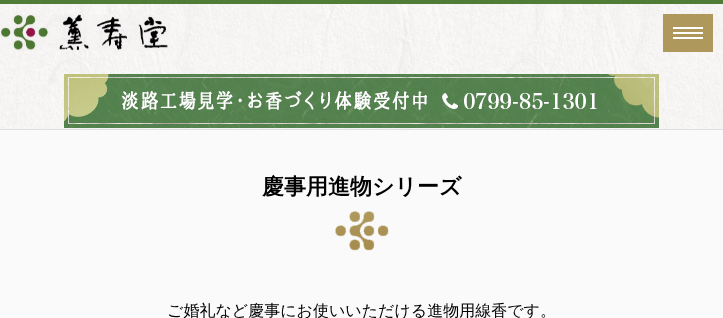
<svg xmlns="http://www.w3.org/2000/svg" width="723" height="318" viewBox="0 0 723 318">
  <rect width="100%" height="100%" fill="#fafafa"/>
  <image x="0" y="4" width="723" height="125" href="img1.png"/>
  <rect x="0" y="0" width="723" height="4" fill="#507c36"/>
  <rect x="0" y="129" width="723" height="1" fill="#dfdfdf"/>
  <image x="0" y="14" width="170" height="37" href="img2.png"/>
  <rect x="663" y="14" width="50" height="38" fill="#ae985c"/>
  <rect x="673" y="27" width="30" height="2" fill="#ffffff"/>
  <rect x="673" y="32" width="30" height="2" fill="#ffffff"/>
  <rect x="673" y="37" width="30" height="2" fill="#ffffff"/>
  <image x="64" y="74" width="595" height="54" href="img3.png"/>
  <text x="262" y="194" font-family="WenQuanYi Zen Hei" font-size="22" font-weight="bold" fill="#000000">慶事用進物シリーズ</text>
  <image x="335" y="211" width="54" height="40" href="img4.png"/>
  <text x="167" y="316" font-family="WenQuanYi Zen Hei" font-size="16" font-weight="500" fill="#000000">ご婚礼など慶事にお使いいただける進物用線香です。</text>
</svg>
